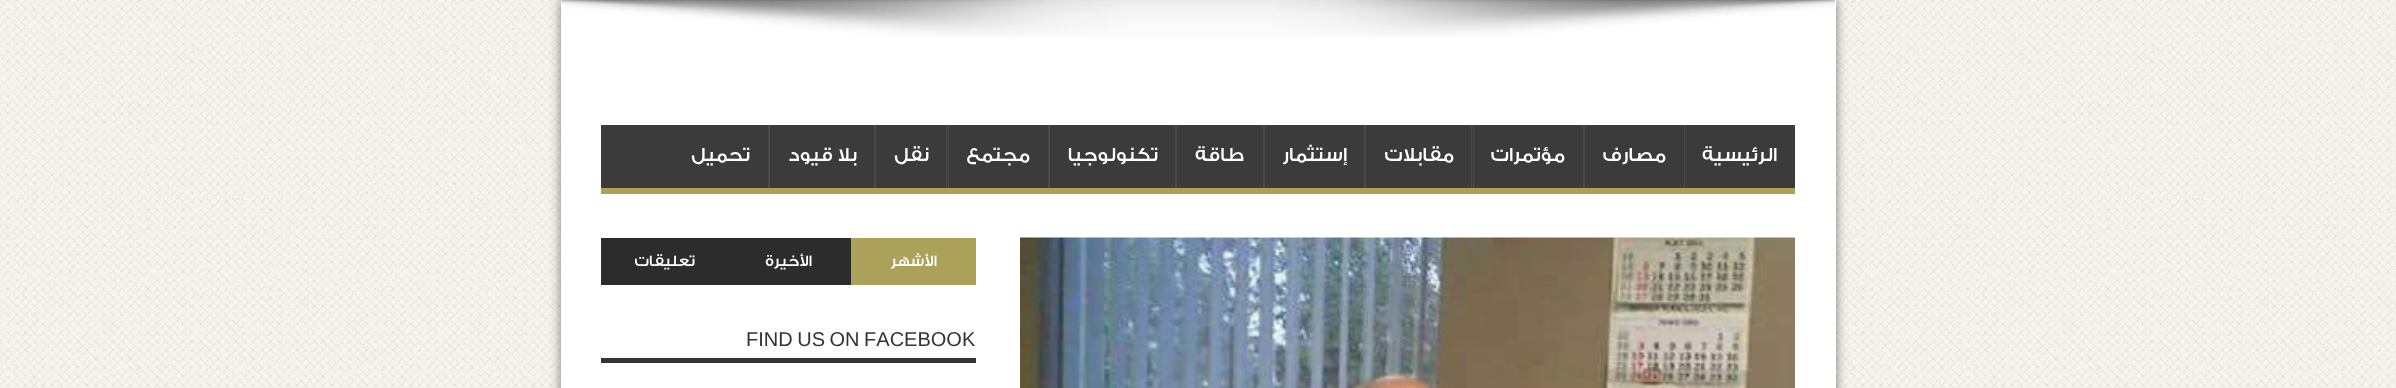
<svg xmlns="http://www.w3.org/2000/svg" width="2396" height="388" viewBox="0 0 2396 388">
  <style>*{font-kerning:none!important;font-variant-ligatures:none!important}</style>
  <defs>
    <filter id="blur1" x="-50%" y="-200%" width="200%" height="500%"><feGaussianBlur stdDeviation="6"/></filter>
  </defs>
  <rect width="100%" height="100%" fill="#f4f2e9"/>
  <image x="0" y="0" width="2396" height="388" href="img1.png"/>
  <rect x="561" y="0" width="1275" height="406" fill="#000000" fill-opacity="0.5" filter="url(#blur1)"/>
  <rect x="561" y="0" width="1275" height="388" fill="#ffffff"/>
  <image x="561" y="0" width="1274" height="37" href="img2.png"/>
  <rect x="601" y="125" width="1194" height="63" fill="#3b3b3b"/>
  <rect x="601" y="188" width="1194" height="6" fill="#aba159"/>
  <text x="1777" y="161" font-family="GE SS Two" font-size="20" font-weight="500" direction="rtl" fill="#ffffff">الرئيسية</text>
  <rect x="1684" y="125" width="1" height="63" fill="#4a4a4a"/>
  <rect x="1583" y="125" width="2" height="63" fill="#4a4a4a"/>
  <text x="1666" y="161" font-family="GE SS Two" font-size="20" font-weight="500" direction="rtl" fill="#ffffff">مصارف</text>
  <rect x="1473" y="125" width="1" height="63" fill="#4a4a4a"/>
  <text x="1565" y="161" font-family="GE SS Two" font-size="20" font-weight="500" direction="rtl" fill="#ffffff">مؤتمرات</text>
  <rect x="1471" y="125" width="1" height="63" fill="#4a4a4a"/>
  <rect x="1364" y="125" width="2" height="63" fill="#4a4a4a"/>
  <text x="1454" y="161" font-family="GE SS Two" font-size="20" font-weight="500" direction="rtl" fill="#ffffff">مقابلات</text>
  <rect x="1263" y="125" width="2" height="63" fill="#4a4a4a"/>
  <text x="1347" y="161" font-family="GE SS Two" font-size="20" font-weight="500" direction="rtl" fill="#ffffff">إستثمار</text>
  <rect x="1175" y="125" width="2" height="63" fill="#4a4a4a"/>
  <text x="1244" y="161" font-family="GE SS Two" font-size="20" font-weight="500" direction="rtl" fill="#ffffff">طاقة</text>
  <rect x="1048" y="125" width="2" height="63" fill="#4a4a4a"/>
  <text x="1158" y="161" font-family="GE SS Two" font-size="20" font-weight="500" direction="rtl" fill="#ffffff">تكنولوجيا</text>
  <rect x="948" y="125" width="1" height="63" fill="#4a4a4a"/>
  <text x="1030" y="161" font-family="GE SS Two" font-size="20" font-weight="500" direction="rtl" fill="#ffffff">مجتمع</text>
  <rect x="946" y="125" width="1" height="63" fill="#4a4a4a"/>
  <rect x="874" y="125" width="2" height="63" fill="#4a4a4a"/>
  <text x="929" y="161" font-family="GE SS Two" font-size="20" font-weight="500" direction="rtl" fill="#ffffff">نقل</text>
  <rect x="768" y="125" width="2" height="63" fill="#4a4a4a"/>
  <text x="857" y="161" font-family="GE SS Two" font-size="20" font-weight="500" direction="rtl" fill="#ffffff">بلا قيود</text>
  <text x="750" y="161" font-family="GE SS Two" font-size="20" font-weight="500" direction="rtl" fill="#ffffff">تحميل</text>
  <image x="1020" y="237" width="775" height="151" href="img3.png"/>
  <rect x="851" y="238" width="125" height="47" fill="#aba159"/>
  <text x="937" y="266" font-family="GE SS Two" font-size="16" font-weight="500" direction="rtl" fill="#ffffff">الأشهر</text>
  <rect x="601" y="238" width="250" height="47" fill="#2c2c2c"/>
  <text x="812" y="266" font-family="GE SS Two" font-size="16" font-weight="500" direction="rtl" fill="#ffffff">الأخيرة</text>
  <text x="695" y="266" font-family="GE SS Two" font-size="16" font-weight="500" direction="rtl" fill="#ffffff">تعليقات</text>
  <rect x="601" y="358" width="375" height="5" fill="#333333"/>
  <text x="746" y="346" word-spacing="-1" font-family="Liberation Sans" font-size="20" fill="#333333">FIND US ON FACEBOOK</text>
</svg>
